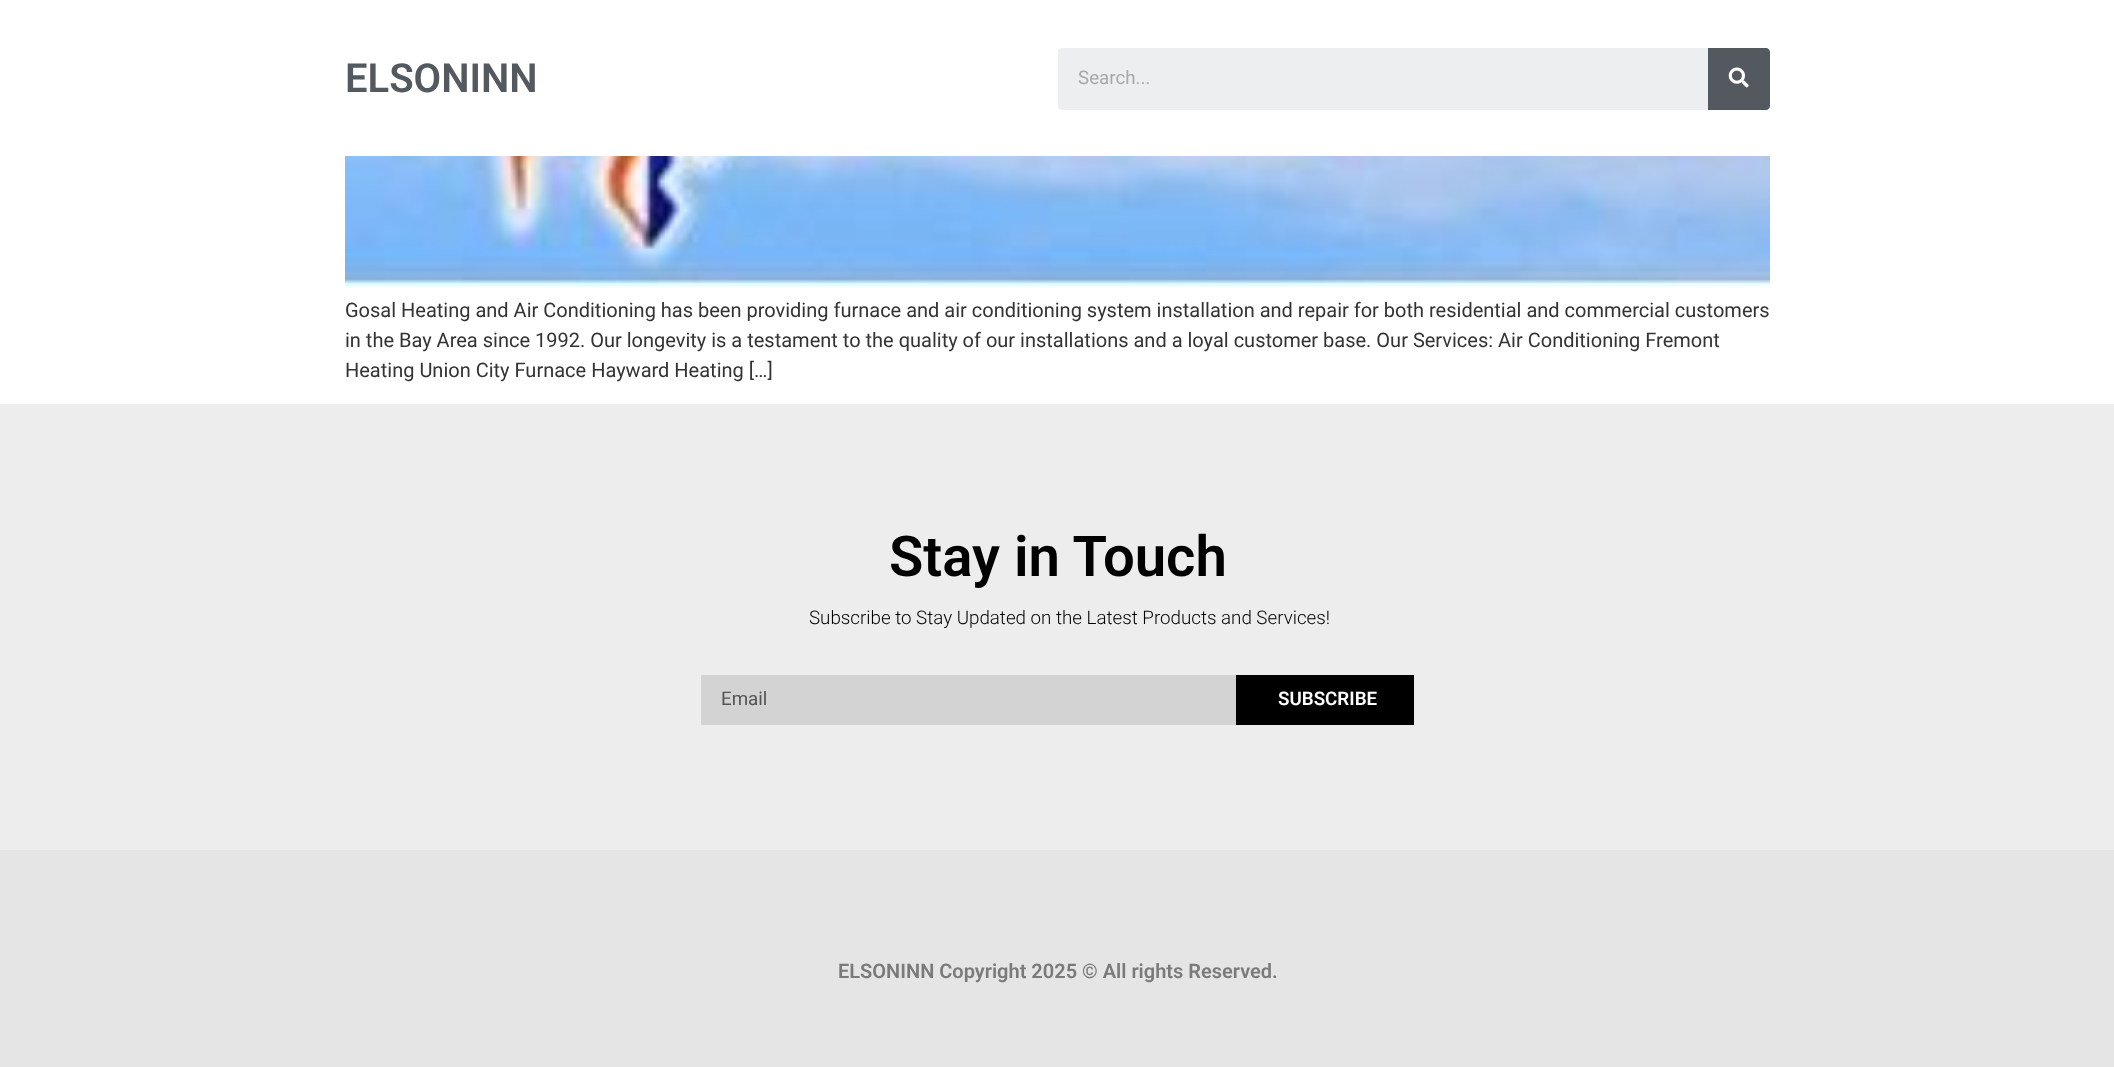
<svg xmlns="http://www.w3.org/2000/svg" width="2114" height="1067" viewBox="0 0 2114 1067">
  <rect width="100%" height="100%" fill="#ffffff"/>
  <text x="345" y="92" font-family="Roboto" font-size="40" font-weight="600" fill="#54595f">ELSONINN</text>
  <rect x="1058" y="48" width="712" height="62" rx="4" fill="#eceeef"/>
  <text x="1078" y="84" font-family="Roboto" font-size="18.75" fill="#a8a8a9">Search...</text>
  <path d="M1708 48H1766C1768 48 1770 50 1770 52V106C1770 108 1768 110 1766 110H1708Z" fill="#54595f"/>
  <image x="1728" y="67" width="21" height="21" href="img1.png"/>
  <image x="345" y="156" width="1425" height="131" href="img2.png"/>
  <text x="345" y="317" font-family="Roboto" font-size="20" fill="#333333">Gosal Heating and Air Conditioning has been providing furnace and air conditioning system installation and repair for both residential and commercial customers</text>
  <text x="345" y="347" font-family="Roboto" font-size="20" fill="#333333">in the Bay Area since 1992. Our longevity is a testament to the quality of our installations and a loyal customer base. Our Services: Air Conditioning Fremont</text>
  <text x="345" y="377" font-family="Roboto" font-size="20" fill="#333333">Heating Union City Furnace Hayward Heating […]</text>
  <rect x="0" y="404" width="2114" height="446" fill="#ededed"/>
  <text x="889" y="576" font-family="Roboto" font-size="56.25" font-weight="600" fill="#000000">Stay in Touch</text>
  <text x="809" y="624" font-family="Roboto" font-size="18.75" font-weight="300" fill="#000000">Subscribe to Stay Updated on the Latest Products and Services!</text>
  <rect x="701" y="675" width="535" height="50" fill="#d3d3d3"/>
  <text x="721" y="705" font-family="Roboto" font-size="18.75" fill="#545454">Email</text>
  <rect x="1236" y="675" width="178" height="50" fill="#000000"/>
  <text x="1278" y="705" font-family="Roboto" font-size="18.75" font-weight="600" fill="#ffffff">SUBSCRIBE</text>
  <rect x="0" y="850" width="2114" height="217" fill="#e5e5e5"/>
  <text x="838" y="978" font-family="Roboto" font-size="20" font-weight="600" fill="#7a7a7a">ELSONINN Copyright 2025 © All rights Reserved.</text>
</svg>
